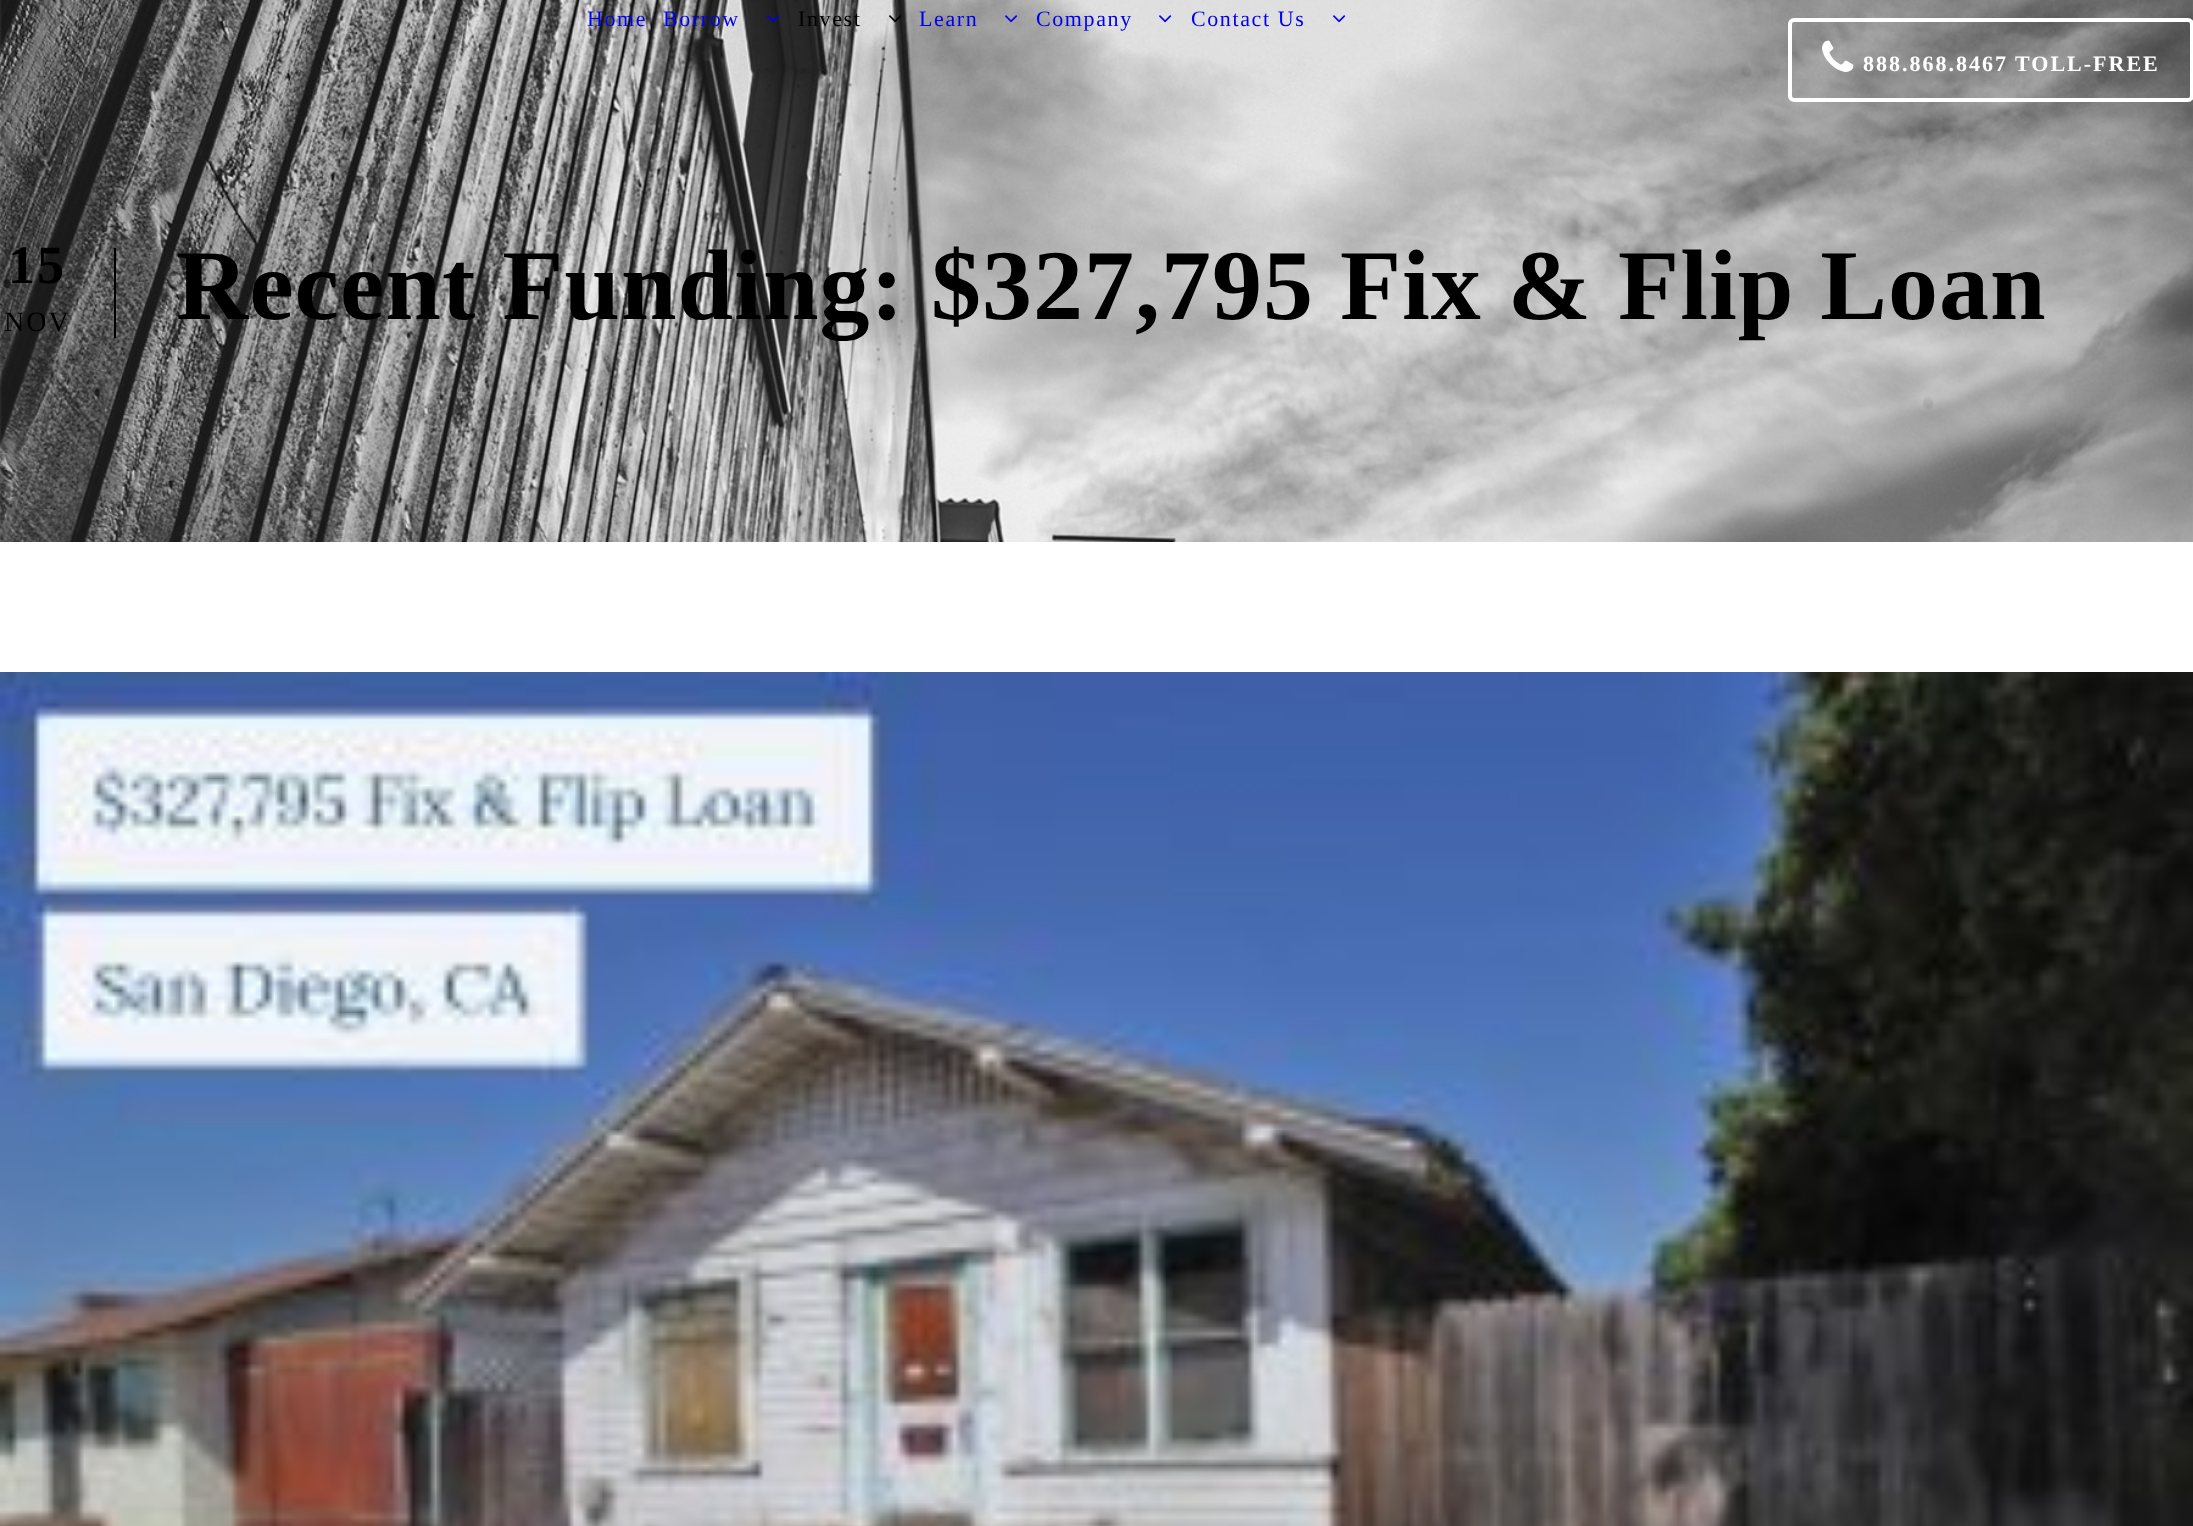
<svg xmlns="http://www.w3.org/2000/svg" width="2193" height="1526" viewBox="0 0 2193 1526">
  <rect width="100%" height="100%" fill="#ffffff"/>
  <image x="0" y="0" width="2193" height="542" href="img7.png"/>
  <text x="587" y="26" font-family="Liberation Serif" font-size="22" letter-spacing="1.6" fill="#0000ee">Home</text>
  <text x="663" y="26" font-family="Liberation Serif" font-size="22" letter-spacing="1.6" fill="#0000ee">Borrow</text>
  <image x="767" y="15" width="13" height="8" href="img1.png"/>
  <text x="798" y="26" font-family="Liberation Serif" font-size="22" letter-spacing="1.6" fill="#000000">Invest</text>
  <image x="889" y="15" width="12" height="8" href="img2.png"/>
  <text x="919" y="26" font-family="Liberation Serif" font-size="22" letter-spacing="1.6" fill="#0000ee">Learn</text>
  <image x="1005" y="15" width="13" height="8" href="img3.png"/>
  <text x="1036" y="26" font-family="Liberation Serif" font-size="22" letter-spacing="1.6" fill="#0000ee">Company</text>
  <image x="1159" y="15" width="13" height="8" href="img4.png"/>
  <text x="1191" y="26" font-family="Liberation Serif" font-size="22" letter-spacing="1.6" fill="#0000ee">Contact Us</text>
  <image x="1333" y="15" width="13" height="8" href="img5.png"/>
  <rect x="1790" y="20" width="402" height="80" rx="4" fill="none" stroke="#ffffff" stroke-width="4"/>
  <image x="1822" y="40" width="32" height="32" href="img6.png"/>
  <text x="1863" y="71" font-family="Liberation Serif" font-size="22" font-weight="bold" letter-spacing="2" fill="#ffffff">888.868.8467</text>
  <text x="2015" y="71" font-family="Liberation Serif" font-size="22" font-weight="bold" letter-spacing="2" fill="#ffffff">TOLL-FREE</text>
  <rect x="114" y="248" width="2" height="90" fill="#000000"/>
  <text x="8" y="283" font-family="Liberation Serif" font-size="54" font-weight="bold" letter-spacing="2" fill="#000000">15</text>
  <text x="4" y="331" font-family="Liberation Serif" font-size="28" letter-spacing="2" fill="#000000">NOV</text>
  <text x="176" y="319" font-family="Liberation Serif" font-size="100" font-weight="bold" letter-spacing="1" fill="#000000">Recent Funding: $327,795 Fix &amp; Flip Loan</text>
  <image x="0" y="672" width="2193" height="854" href="img8.png"/>
</svg>
